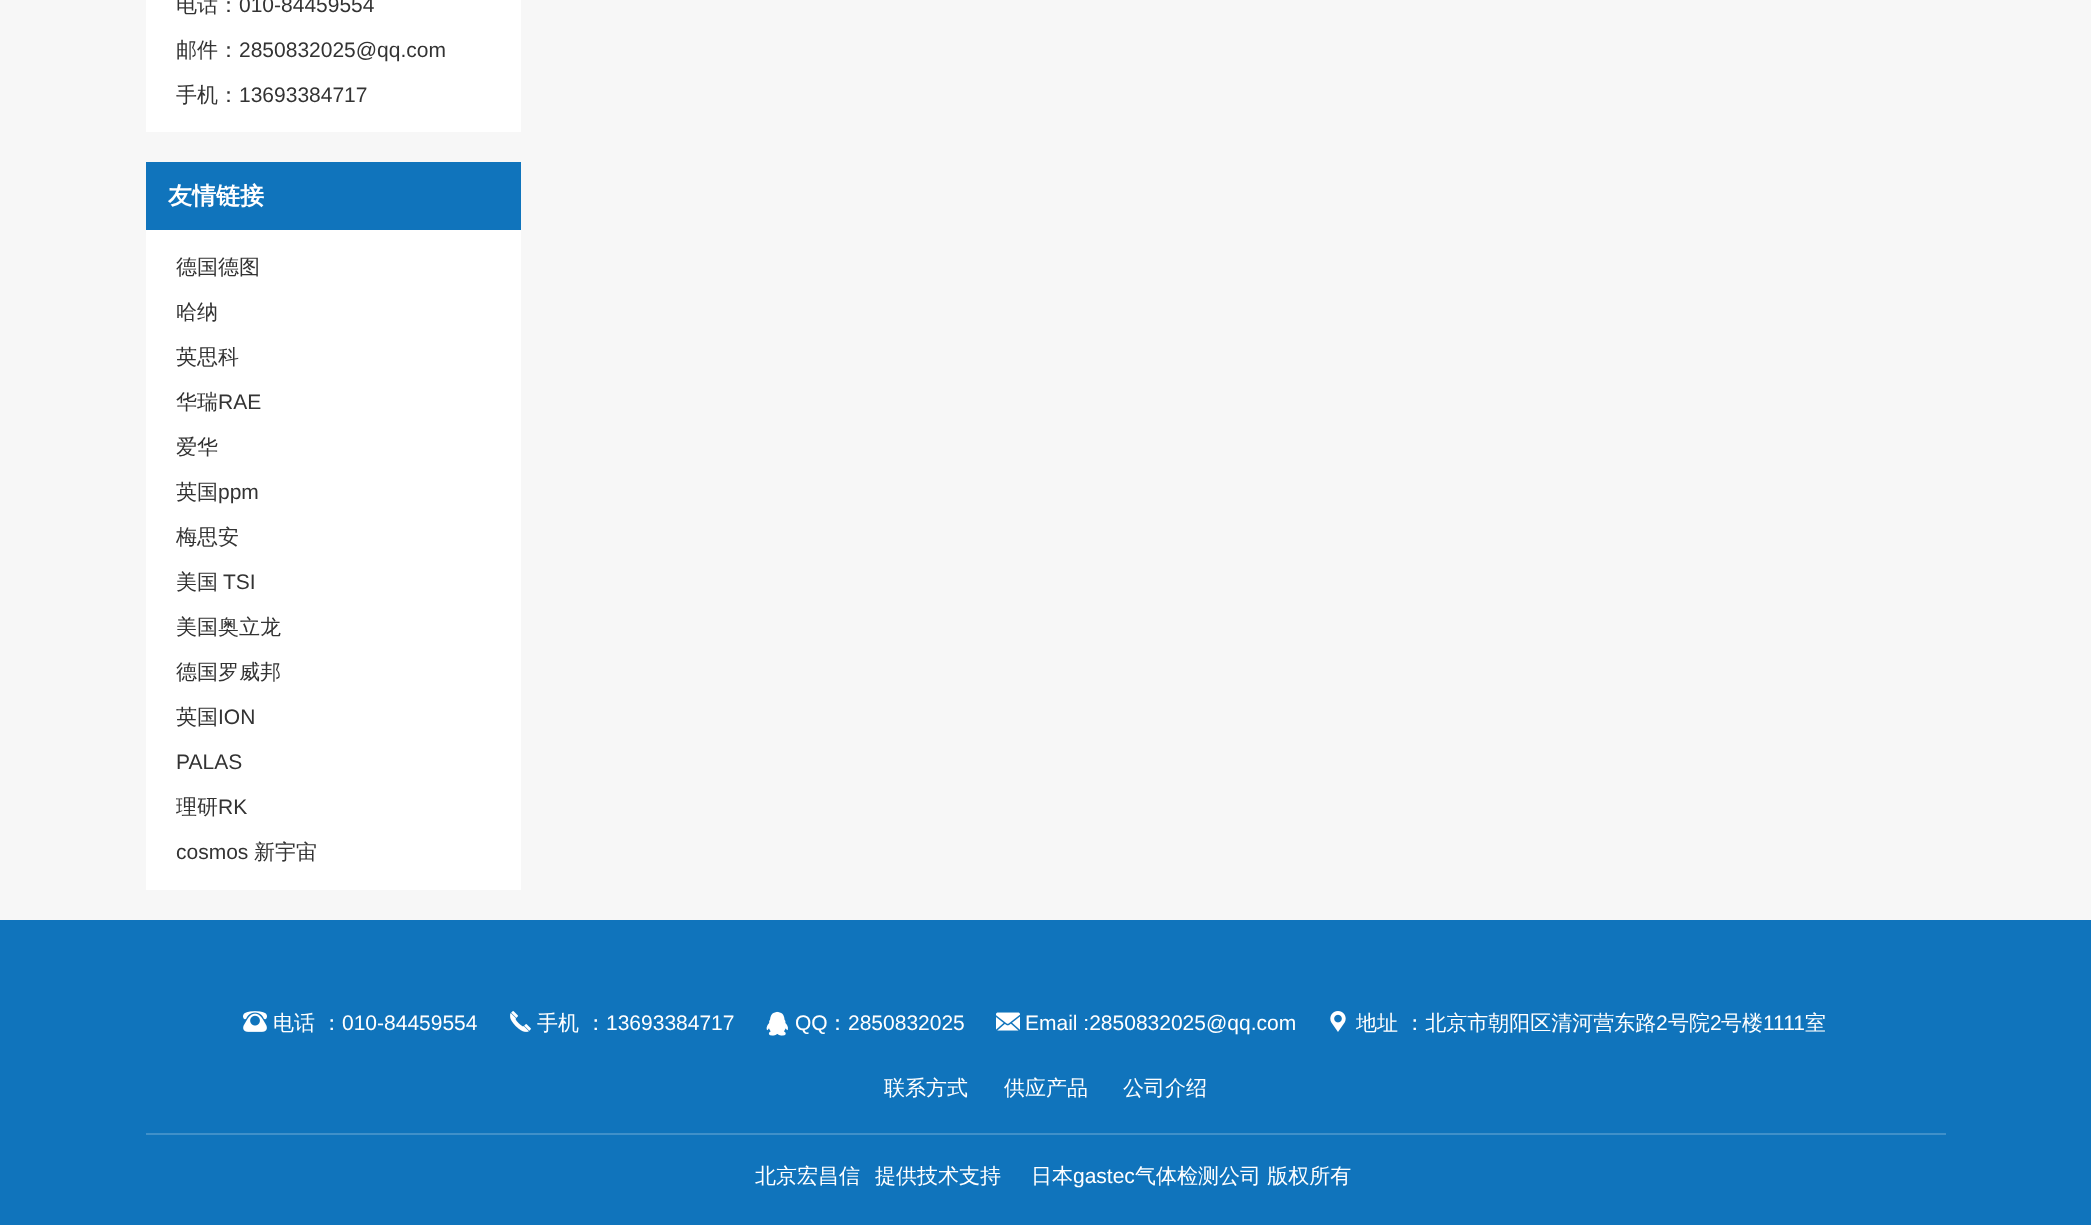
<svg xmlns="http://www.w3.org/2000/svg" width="2091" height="1225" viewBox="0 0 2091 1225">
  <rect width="100%" height="100%" fill="#f7f7f7"/>
  <rect x="146" y="0" width="375" height="132" fill="#ffffff"/>
  <text x="176" y="12" font-family="WenQuanYi Zen Hei" font-size="21" font-weight="500" fill="#333333">电话：</text>
  <text x="239" y="12" font-family="Liberation Sans" font-size="21" fill="#333333">010-84459554</text>
  <text x="176" y="57" font-family="WenQuanYi Zen Hei" font-size="21" font-weight="500" fill="#333333">邮件：</text>
  <text x="239" y="57" font-family="Liberation Sans" font-size="21" fill="#333333">2850832025@qq.com</text>
  <text x="176" y="102" font-family="WenQuanYi Zen Hei" font-size="21" font-weight="500" fill="#333333">手机：</text>
  <text x="239" y="102" font-family="Liberation Sans" font-size="21" fill="#333333">13693384717</text>
  <rect x="146" y="162" width="375" height="68" fill="#1074bc"/>
  <text x="168" y="204" font-family="WenQuanYi Zen Hei" font-size="24" font-weight="bold" fill="#ffffff">友情链接</text>
  <rect x="146" y="230" width="375" height="660" fill="#ffffff"/>
  <text x="176" y="274" font-family="WenQuanYi Zen Hei" font-size="21" font-weight="500" fill="#333333">德国德图</text>
  <text x="176" y="319" font-family="WenQuanYi Zen Hei" font-size="21" font-weight="500" fill="#333333">哈纳</text>
  <text x="176" y="364" font-family="WenQuanYi Zen Hei" font-size="21" font-weight="500" fill="#333333">英思科</text>
  <text x="176" y="409" font-family="WenQuanYi Zen Hei" font-size="21" font-weight="500" fill="#333333">华瑞</text>
  <text x="218" y="409" font-family="Liberation Sans" font-size="21" fill="#333333">RAE</text>
  <text x="176" y="454" font-family="WenQuanYi Zen Hei" font-size="21" font-weight="500" fill="#333333">爱华</text>
  <text x="176" y="499" font-family="WenQuanYi Zen Hei" font-size="21" font-weight="500" fill="#333333">英国</text>
  <text x="218" y="499" font-family="Liberation Sans" font-size="21" fill="#333333">ppm</text>
  <text x="176" y="544" font-family="WenQuanYi Zen Hei" font-size="21" font-weight="500" fill="#333333">梅思安</text>
  <text x="176" y="589" font-family="WenQuanYi Zen Hei" font-size="21" font-weight="500" fill="#333333">美国</text>
  <text x="223" y="589" font-family="Liberation Sans" font-size="21" fill="#333333">TSI</text>
  <text x="176" y="634" font-family="WenQuanYi Zen Hei" font-size="21" font-weight="500" fill="#333333">美国奥立龙</text>
  <text x="176" y="679" font-family="WenQuanYi Zen Hei" font-size="21" font-weight="500" fill="#333333">德国罗威邦</text>
  <text x="176" y="724" font-family="WenQuanYi Zen Hei" font-size="21" font-weight="500" fill="#333333">英国</text>
  <text x="218" y="724" font-family="Liberation Sans" font-size="21" fill="#333333">ION</text>
  <text x="176" y="769" font-family="Liberation Sans" font-size="21" fill="#333333">PALAS</text>
  <text x="176" y="814" font-family="WenQuanYi Zen Hei" font-size="21" font-weight="500" fill="#333333">理研</text>
  <text x="218" y="814" font-family="Liberation Sans" font-size="21" fill="#333333">RK</text>
  <text x="176" y="859" font-family="Liberation Sans" font-size="21" fill="#333333">cosmos</text>
  <text x="254" y="859" font-family="WenQuanYi Zen Hei" font-size="21" font-weight="500" fill="#333333">新宇宙</text>
  <rect x="0" y="920" width="2091" height="305" fill="#1074bc"/>
  <image x="243" y="1011" width="24" height="21" href="img1.png"/>
  <text x="273" y="1030" font-family="WenQuanYi Zen Hei" font-size="21" font-weight="500" fill="#ffffff">电话 ：</text>
  <text x="342" y="1030" font-family="Liberation Sans" font-size="21" fill="#ffffff">010-84459554</text>
  <image x="510" y="1011" width="21" height="21" href="img2.png"/>
  <text x="537" y="1030" font-family="WenQuanYi Zen Hei" font-size="21" font-weight="500" fill="#ffffff">手机 ：</text>
  <text x="606" y="1030" font-family="Liberation Sans" font-size="21" fill="#ffffff">13693384717</text>
  <image x="766" y="1011" width="22" height="25" href="img3.png"/>
  <text x="795" y="1030" font-family="Liberation Sans" font-size="21" fill="#ffffff">QQ</text>
  <text x="827" y="1030" font-family="WenQuanYi Zen Hei" font-size="21" font-weight="500" fill="#ffffff">：</text>
  <text x="848" y="1030" font-family="Liberation Sans" font-size="21" fill="#ffffff">2850832025</text>
  <image x="996" y="1012" width="24" height="19" href="img4.png"/>
  <text x="1025" y="1030" font-family="Liberation Sans" font-size="21" fill="#ffffff">Email :2850832025@qq.com</text>
  <image x="1330" y="1011" width="16" height="21" href="img5.png"/>
  <text x="1356" y="1030" font-family="WenQuanYi Zen Hei" font-size="21" font-weight="500" fill="#ffffff">地址 ：北京市朝阳区清河营东路</text>
  <text x="1656" y="1030" font-family="Liberation Sans" font-size="21" fill="#ffffff">2</text>
  <text x="1668" y="1030" font-family="WenQuanYi Zen Hei" font-size="21" font-weight="500" fill="#ffffff">号院</text>
  <text x="1710" y="1030" font-family="Liberation Sans" font-size="21" fill="#ffffff">2</text>
  <text x="1721" y="1030" font-family="WenQuanYi Zen Hei" font-size="21" font-weight="500" fill="#ffffff">号楼</text>
  <text x="1763" y="1030" font-family="Liberation Sans" font-size="21" fill="#ffffff">1111</text>
  <text x="1805" y="1030" font-family="WenQuanYi Zen Hei" font-size="21" font-weight="500" fill="#ffffff">室</text>
  <rect x="146" y="1133" width="1800" height="2" fill="#4090c9"/>
  <text x="884" y="1095" font-family="WenQuanYi Zen Hei" font-size="21" font-weight="500" fill="#ffffff">联系方式</text>
  <text x="1004" y="1095" font-family="WenQuanYi Zen Hei" font-size="21" font-weight="500" fill="#ffffff">供应产品</text>
  <text x="1123" y="1095" font-family="WenQuanYi Zen Hei" font-size="21" font-weight="500" fill="#ffffff">公司介绍</text>
  <text x="755" y="1183" font-family="WenQuanYi Zen Hei" font-size="21" font-weight="500" fill="#ffffff">北京宏昌信</text>
  <text x="875" y="1183" font-family="WenQuanYi Zen Hei" font-size="21" font-weight="500" fill="#ffffff">提供技术支持</text>
  <text x="1031" y="1183" font-family="WenQuanYi Zen Hei" font-size="21" font-weight="500" fill="#ffffff">日本</text>
  <text x="1073" y="1183" font-family="Liberation Sans" font-size="21" fill="#ffffff">gastec</text>
  <text x="1135" y="1183" font-family="WenQuanYi Zen Hei" font-size="21" font-weight="500" fill="#ffffff">气体检测公司 版权所有</text>
</svg>
